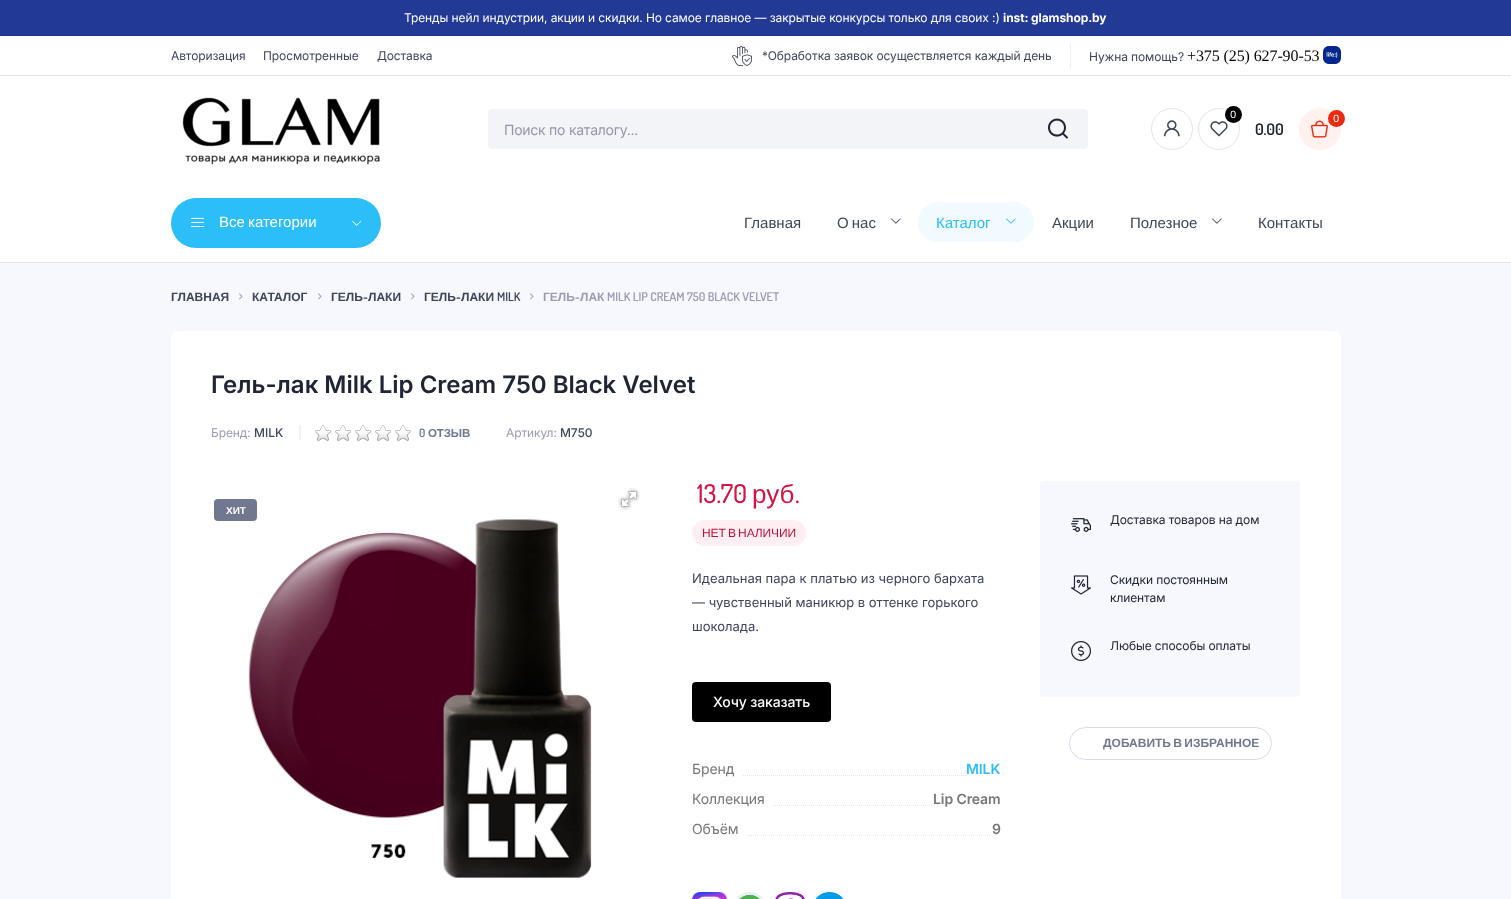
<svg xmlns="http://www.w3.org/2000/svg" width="1511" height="899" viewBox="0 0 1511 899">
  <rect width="100%" height="100%" fill="#ffffff"/>
  <rect x="0" y="0" width="1511" height="36" fill="#233a95"/>
  <text x="404" y="22" font-family="Inter" font-size="12" letter-spacing="-0.1" fill="#ffffff">Тренды нейл индустрии, акции и скидки. Но самое главное — закрытые конкурсы только для своих :)</text>
  <text x="1003" y="22" font-family="Inter" font-size="12" font-weight="bold" letter-spacing="-0.1" fill="#ffffff">inst: glamshop.by</text>
  <rect x="0" y="75" width="1511" height="1" fill="#e3e4e6"/>
  <text x="171" y="60" font-family="Inter" font-size="12" letter-spacing="-0.1" fill="#3e445a">Авторизация</text>
  <text x="263" y="60" font-family="Inter" font-size="12" letter-spacing="-0.1" fill="#3e445a">Просмотренные</text>
  <text x="377" y="60" font-family="Inter" font-size="12" letter-spacing="-0.1" fill="#3e445a">Доставка</text>
  <image x="732" y="46" width="20" height="20" href="img1.png"/>
  <text x="762" y="60" font-family="Inter" font-size="12" letter-spacing="-0.1" fill="#3e445a">*Обработка заявок осуществляется каждый день</text>
  <rect x="1070" y="44" width="1" height="24" fill="#edeef5"/>
  <text x="1089" y="61" font-family="Inter" font-size="12" letter-spacing="-0.1" fill="#3e445a">Нужна помощь?</text>
  <text x="1187" y="61" font-family="Liberation Serif" font-size="16" letter-spacing="-0.1" fill="#000000">+375 (25) 627-90-53</text>
  <image x="1323" y="46" width="18" height="18" href="img2.png"/>
  <image x="182" y="97" width="198" height="68" href="img3.png"/>
  <rect x="488" y="109" width="600" height="40" rx="4" fill="#f3f4f7"/>
  <text x="504" y="135" font-family="Inter" font-size="14" letter-spacing="-0.25" fill="#9595a9">Поиск по каталогу...</text>
  <image x="1048" y="118" width="20" height="21" href="img4.png"/>
  <circle cx="1172" cy="129" r="20.5" fill="none" stroke="#e2e4ec"/>
  <image x="1163" y="120" width="17" height="17" href="img5.png"/>
  <circle cx="1219" cy="129" r="20.5" fill="none" stroke="#e2e4ec"/>
  <image x="1210" y="121" width="18" height="16" href="img6.png"/>
  <circle cx="1233.5" cy="114.5" r="8.5" fill="#000000"/>
  <text x="1230" y="118" font-family="Inter" font-size="10" letter-spacing="-0.1" fill="#ffffff">0</text>
  <circle cx="1320" cy="129" r="20.5" fill="#fff1ee" stroke="#fff1ee"/>
  <image x="1311" y="120" width="17" height="18" href="img7.png"/>
  <circle cx="1336.5" cy="118.5" r="8.5" fill="#ea2b0f"/>
  <text x="1333" y="122" font-family="Inter" font-size="10" letter-spacing="-0.1" fill="#ffffff">0</text>
  <text x="1255" y="135" font-family="Dosis" font-size="16" font-weight="600" letter-spacing="-0.1" fill="#202435">0.00</text>
  <rect x="0" y="262" width="1511" height="1" fill="#e3e4e6"/>
  <rect x="171" y="198" width="210" height="50" rx="25" fill="#2bbef9"/>
  <image x="191" y="217" width="13" height="10" href="img8.png"/>
  <text x="219" y="227" word-spacing="-1" font-family="Liberation Sans" font-size="15" fill="#ffffff">Все категории</text>
  <image x="352" y="220" width="9" height="6" href="img9.png"/>
  <text x="744" y="228" font-family="Liberation Sans" font-size="15" fill="#3e445a">Главная</text>
  <text x="837" y="228" word-spacing="-1" font-family="Liberation Sans" font-size="15" fill="#3e445a">О нас</text>
  <image x="891" y="218" width="10" height="6" href="img10.png"/>
  <rect x="918" y="202" width="116" height="40" rx="20" fill="#f0faff"/>
  <text x="936" y="228" font-family="Liberation Sans" font-size="15" fill="#2bbef9">Каталог</text>
  <image x="1006" y="218" width="10" height="6" href="img11.png"/>
  <text x="1052" y="228" font-family="Liberation Sans" font-size="15" fill="#3e445a">Акции</text>
  <text x="1130" y="228" font-family="Liberation Sans" font-size="15" fill="#3e445a">Полезное</text>
  <image x="1212" y="218" width="10" height="6" href="img10.png"/>
  <text x="1258" y="228" font-family="Liberation Sans" font-size="15" fill="#3e445a">Контакты</text>
  <rect x="0" y="263" width="1511" height="636" fill="#f7f8fd"/>
  <text x="171" y="301" font-family="Liberation Sans" font-size="12" font-weight="bold" fill="#3e445a">ГЛАВНАЯ</text>
  <image x="239" y="293" width="4" height="7" href="img12.png"/>
  <text x="252" y="301" font-family="Liberation Sans" font-size="12" font-weight="bold" fill="#3e445a">КАТАЛОГ</text>
  <image x="318" y="293" width="4" height="7" href="img12.png"/>
  <text x="331" y="301" font-family="Liberation Sans" font-size="12" font-weight="bold" fill="#3e445a">ГЕЛЬ</text>
  <text x="363" y="301" font-family="Dosis" font-size="12" font-weight="600" fill="#3e445a">-</text>
  <text x="368" y="301" font-family="Liberation Sans" font-size="12" font-weight="bold" fill="#3e445a">ЛАКИ</text>
  <image x="411" y="293" width="4" height="7" href="img12.png"/>
  <text x="424" y="301" font-family="Liberation Sans" font-size="12" font-weight="bold" fill="#3e445a">ГЕЛЬ</text>
  <text x="456" y="301" font-family="Dosis" font-size="12" font-weight="600" fill="#3e445a">-</text>
  <text x="461" y="301" font-family="Liberation Sans" font-size="12" font-weight="bold" fill="#3e445a">ЛАКИ</text>
  <text x="497" y="301" font-family="Dosis" font-size="12" font-weight="600" fill="#3e445a">MILK</text>
  <image x="530" y="293" width="4" height="7" href="img12.png"/>
  <text x="543" y="301" font-family="Liberation Sans" font-size="12" font-weight="bold" fill="#9b9bb4">ГЕЛЬ</text>
  <text x="575" y="301" font-family="Dosis" font-size="12" font-weight="600" fill="#9b9bb4">-</text>
  <text x="580" y="301" font-family="Liberation Sans" font-size="12" font-weight="bold" fill="#9b9bb4">ЛАК</text>
  <text x="607" y="301" font-family="Dosis" font-size="12" font-weight="600" fill="#9b9bb4">MILK LIP CREAM 750 BLACK VELVET</text>
  <rect x="171" y="331" width="1170" height="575" rx="7" fill="#ffffff"/>
  <text x="211" y="393" font-family="Inter" font-size="24" font-weight="600" fill="#202435">Гель-лак Milk Lip Cream 750 Black Velvet</text>
  <text x="211" y="437" font-family="Inter" font-size="12" letter-spacing="-0.1" fill="#9b9bb4">Бренд:</text>
  <text x="254" y="437" font-family="Inter" font-size="12" font-weight="500" fill="#3e445a">MILK</text>
  <text x="298" y="437" font-family="Inter" font-size="12" letter-spacing="-0.1" fill="#e4e5ee">|</text>
  <image x="315" y="425" width="96" height="16" href="img13.png"/>
  <text x="419" y="437" font-family="Dosis" font-size="11.5" font-weight="600" letter-spacing="-0.1" fill="#71778e">0</text>
  <text x="428" y="437" font-family="Liberation Sans" font-size="11.5" font-weight="bold" letter-spacing="-0.1" fill="#71778e">ОТЗЫВ</text>
  <text x="506" y="437" font-family="Inter" font-size="12" letter-spacing="-0.1" fill="#9b9bb4">Артикул:</text>
  <text x="560" y="437" font-family="Inter" font-size="12" font-weight="500" letter-spacing="-0.1" fill="#3e445a">M750</text>
  <image x="248" y="519" width="344" height="359" href="img15.png"/>
  <rect x="214" y="499" width="43" height="22" rx="4" fill="#71778e"/>
  <text x="226" y="514" font-family="Liberation Sans" font-size="10" font-weight="bold" fill="#ffffff">ХИТ</text>
  <image x="618" y="488" width="22" height="22" href="img14.png"/>
  <text x="697" y="503" font-family="Dosis" font-size="26" font-weight="500" fill="#d51243">13.70</text>
  <text x="752" y="503" font-family="Liberation Sans" font-size="26" fill="#d51243">руб</text>
  <text x="795" y="503" font-family="Dosis" font-size="26" font-weight="500" fill="#d51243">.</text>
  <rect x="692" y="520" width="114" height="26" rx="13" fill="#ffeef2"/>
  <text x="702" y="537" word-spacing="-1" font-family="Liberation Sans" font-size="12" letter-spacing="-0.1" fill="#be143c">НЕТ В НАЛИЧИИ</text>
  <text x="692" y="583" font-family="Inter" font-size="13" fill="#3e445a">Идеальная пара к платью из черного бархата</text>
  <text x="692" y="607" font-family="Inter" font-size="13" fill="#3e445a">— чувственный маникюр в оттенке горького</text>
  <text x="692" y="631" font-family="Inter" font-size="13" fill="#3e445a">шоколада.</text>
  <rect x="692" y="682" width="139" height="40" rx="4" fill="#000000"/>
  <text x="713" y="707" font-family="Inter" font-size="14" font-weight="500" letter-spacing="-0.1" fill="#ffffff">Хочу заказать</text>
  <path d="M697 775.5H995" fill="none" stroke="#e5e5e5" stroke-dasharray="1 1"/>
  <rect x="697" y="775" width="45" height="1" fill="#ffffff"/>
  <text x="692" y="774" font-family="Inter" font-size="14" letter-spacing="-0.1" fill="#777777">Бренд</text>
  <rect x="967" y="775" width="27" height="1" fill="#ffffff"/>
  <text x="966" y="774" font-family="Inter" font-size="14" font-weight="600" letter-spacing="-0.1" fill="#2bbef9">MILK</text>
  <path d="M697 805.5H995" fill="none" stroke="#e5e5e5" stroke-dasharray="1 1"/>
  <rect x="697" y="805" width="75" height="1" fill="#ffffff"/>
  <text x="692" y="804" font-family="Inter" font-size="14" letter-spacing="-0.1" fill="#777777">Коллекция</text>
  <rect x="933" y="805" width="61" height="1" fill="#ffffff"/>
  <text x="933" y="804" font-family="Inter" font-size="14" font-weight="600" letter-spacing="-0.1" fill="#777777">Lip Cream</text>
  <path d="M697 835.5H995" fill="none" stroke="#e5e5e5" stroke-dasharray="1 1"/>
  <rect x="697" y="835" width="49" height="1" fill="#ffffff"/>
  <text x="692" y="834" font-family="Inter" font-size="14" letter-spacing="-0.1" fill="#777777">Объём</text>
  <rect x="993" y="835" width="1" height="1" fill="#ffffff"/>
  <text x="992" y="834" font-family="Inter" font-size="14" font-weight="600" letter-spacing="-0.1" fill="#777777">9</text>
  <image x="692" y="892" width="35" height="7" href="img16.png"/>
  <image x="736" y="892" width="27" height="7" href="img17.png"/>
  <image x="775" y="892" width="30" height="7" href="img18.png"/>
  <image x="815" y="892" width="29" height="7" href="img19.png"/>
  <rect x="1040" y="481" width="260" height="216" rx="4" fill="#f7f8fd"/>
  <image x="1071" y="518" width="20" height="14" href="img20.png"/>
  <text x="1110" y="524" font-family="Inter" font-size="12" letter-spacing="-0.1" fill="#202435">Доставка товаров на дом</text>
  <image x="1071" y="575" width="20" height="20" href="img21.png"/>
  <text x="1110" y="584" font-family="Inter" font-size="12" letter-spacing="-0.1" fill="#202435">Скидки постоянным</text>
  <text x="1110" y="602" font-family="Inter" font-size="12" letter-spacing="-0.1" fill="#202435">клиентам</text>
  <image x="1071" y="641" width="20" height="20" href="img22.png"/>
  <text x="1110" y="650" font-family="Inter" font-size="12" letter-spacing="-0.1" fill="#202435">Любые способы оплаты</text>
  <rect x="1069.5" y="727.5" width="202" height="32" rx="16" fill="none" stroke="#d9d9e9"/>
  <text x="1103" y="747" word-spacing="-1" font-family="Liberation Sans" font-size="12" font-weight="bold" fill="#71778e">ДОБАВИТЬ В ИЗБРАННОЕ</text>
</svg>
